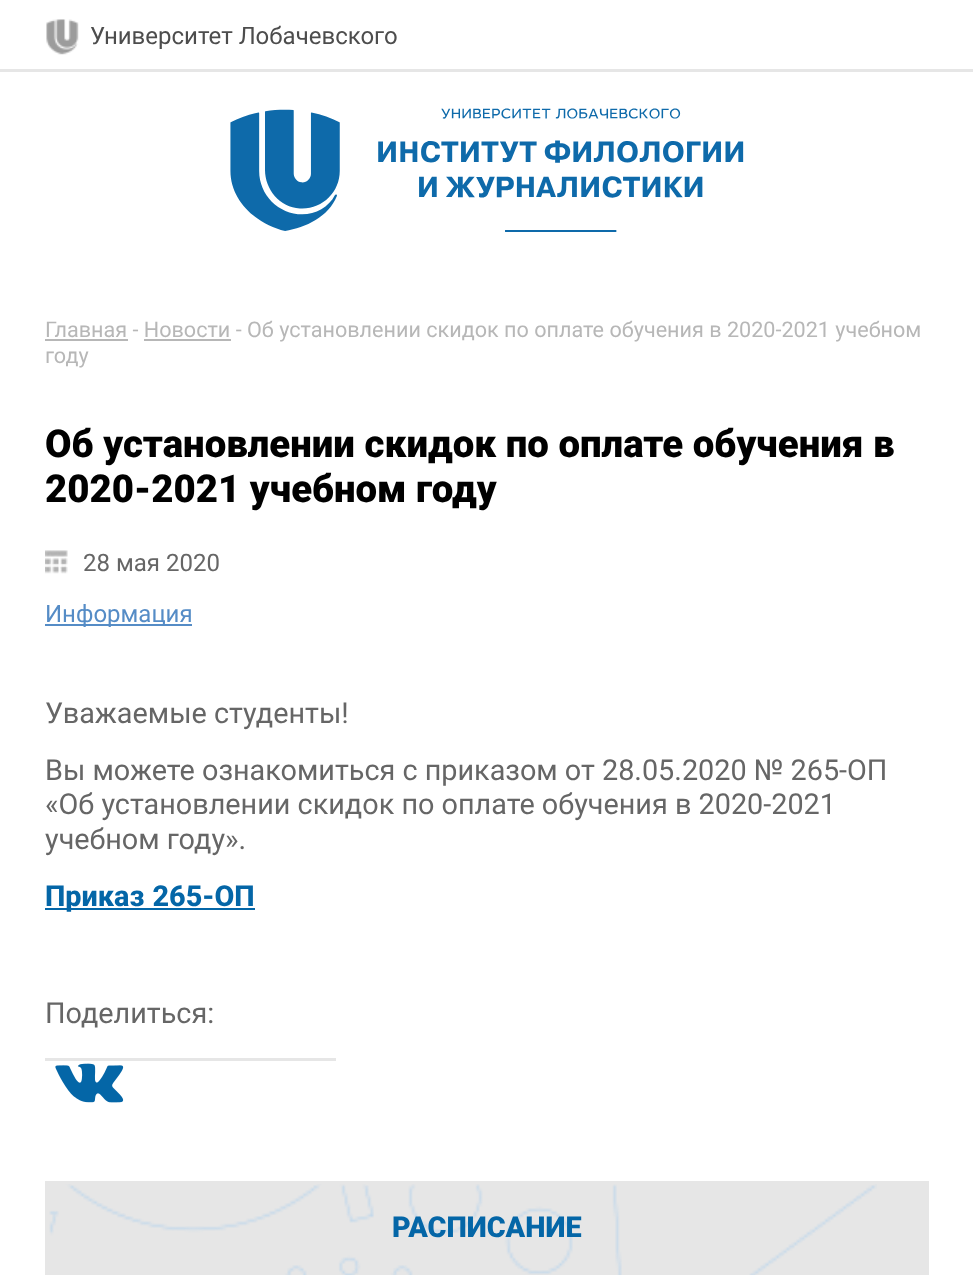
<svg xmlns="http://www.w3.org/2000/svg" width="973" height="1276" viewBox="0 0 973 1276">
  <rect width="100%" height="100%" fill="#ffffff"/>
  <rect x="0" y="69" width="973" height="3" fill="#e6e6e6"/>
  <image x="46" y="19" width="33" height="36" href="img1.png"/>
  <text x="90" y="44" font-family="Roboto" font-size="24" fill="#4d4d4d">Университет Лобачевского</text>
  <image x="230" y="108" width="514" height="124" href="img2.png"/>
  <rect x="45" y="339" width="83" height="2" fill="#b7b7b7"/>
  <text x="45" y="337" font-family="Roboto" font-size="21.6" fill="#b7b7b7">Главная - Новости - Об установлении скидок по оплате обучения в 2020-2021 учебном</text>
  <rect x="144" y="339" width="87" height="2" fill="#b7b7b7"/>
  <text x="45" y="363" font-family="Roboto" font-size="21.6" fill="#b7b7b7">году</text>
  <text x="45" y="457" font-family="Roboto" font-size="38.4" font-weight="900" fill="#000000">Об установлении скидок по оплате обучения в</text>
  <text x="45" y="502" font-family="Roboto" font-size="38.4" font-weight="900" fill="#000000">2020-2021 учебном году</text>
  <image x="45" y="550" width="23" height="24" href="img3.png"/>
  <text x="83" y="571" font-family="Roboto" font-size="24" fill="#666666">28 мая 2020</text>
  <rect x="45" y="624" width="147" height="2" fill="#558cc6"/>
  <text x="45" y="622" font-family="Roboto" font-size="24" fill="#558cc6">Информация</text>
  <text x="45" y="723" font-family="Roboto" font-size="28.8" fill="#666666">Уважаемые студенты!</text>
  <text x="45" y="780" font-family="Roboto" font-size="28.8" fill="#666666">Вы можете ознакомиться с приказом от 28.05.2020 № 265-ОП</text>
  <text x="45" y="814" font-family="Roboto" font-size="28.8" fill="#666666">«Об установлении скидок по оплате обучения в 2020-2021</text>
  <text x="45" y="849" font-family="Roboto" font-size="28.8" fill="#666666">учебном году».</text>
  <rect x="45" y="908" width="210" height="2" fill="#0466a7"/>
  <text x="45" y="906" word-spacing="1" font-family="Roboto" font-size="28.8" font-weight="800" fill="#0466a7">Приказ 265-ОП</text>
  <text x="45" y="1023" font-family="Roboto" font-size="28.8" fill="#666666">Поделиться:</text>
  <image x="55" y="1063" width="69" height="40" href="img4.png"/>
  <rect x="45" y="1058" width="291" height="3" fill="#e6e6e6"/>
  <rect x="45" y="1181" width="884" height="94" fill="#e6e6e6"/>
  <image x="49" y="1184" width="828" height="91" href="img5.png"/>
  <text x="392" y="1237" font-family="Roboto" font-size="28.8" font-weight="900" fill="#0466a7">РАСПИСАНИЕ</text>
</svg>
